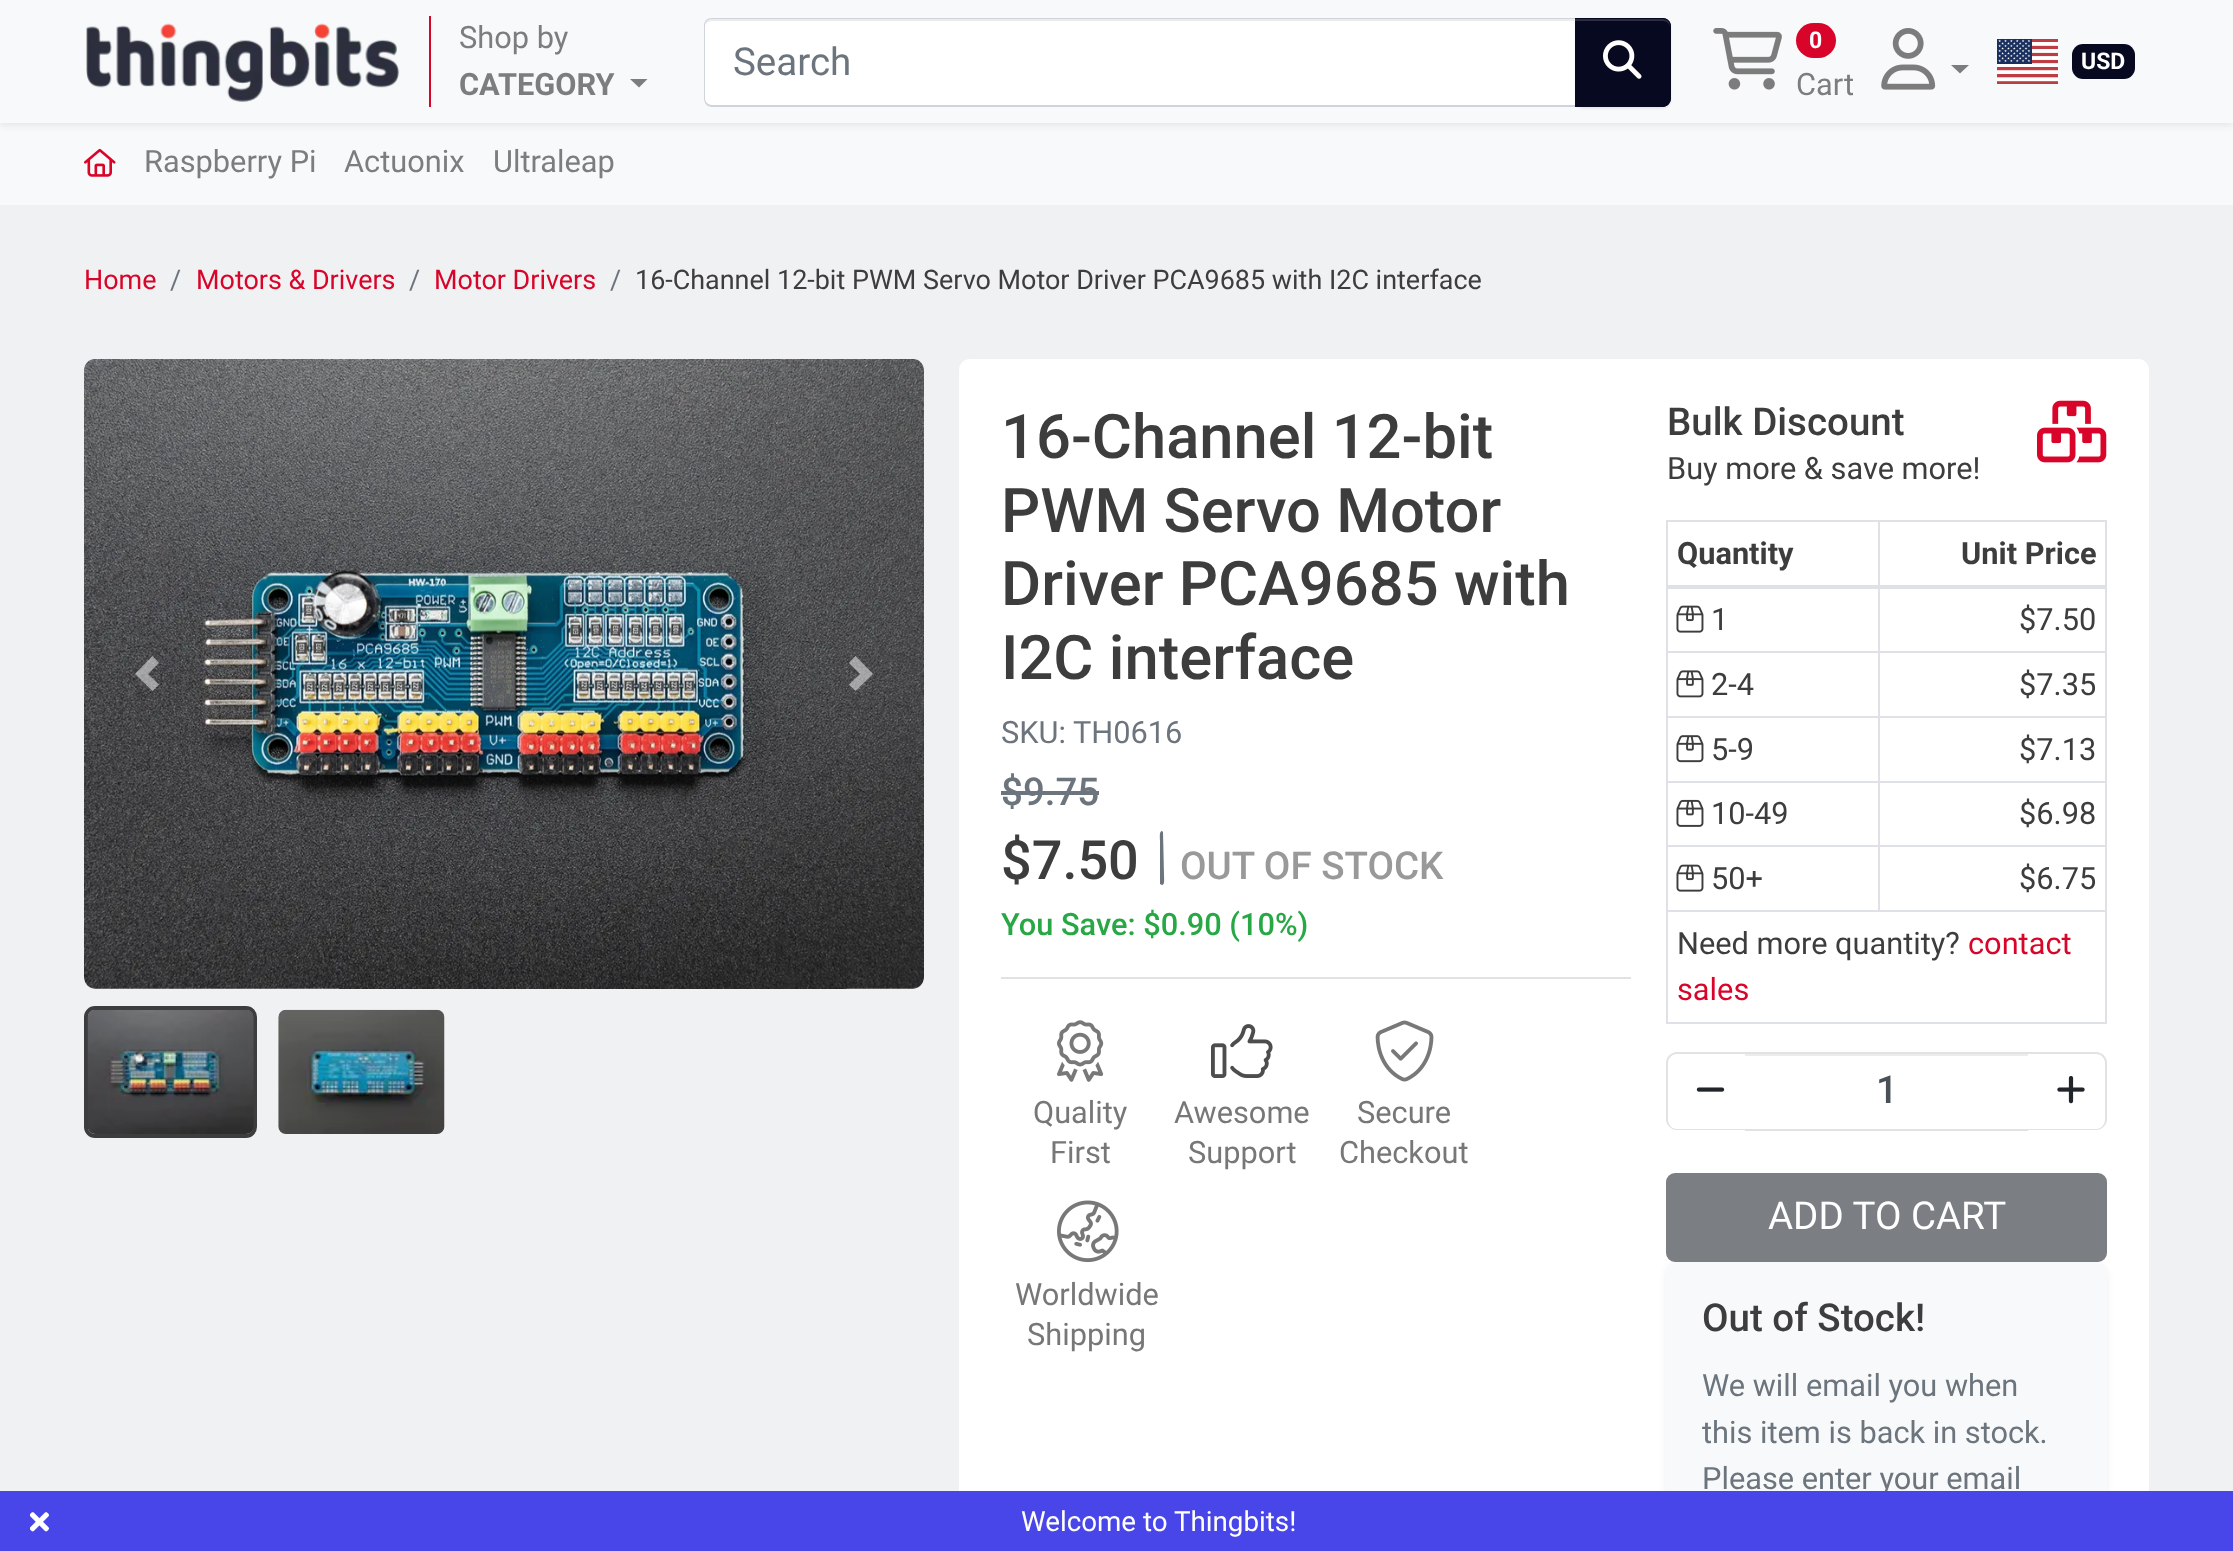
<svg xmlns="http://www.w3.org/2000/svg" width="2233" height="1551" viewBox="0 0 2233 1551">
  <defs>
    <filter id="blur1" x="-50%" y="-200%" width="200%" height="500%"><feGaussianBlur stdDeviation="3.5"/></filter>
    <filter id="blur2" x="-50%" y="-200%" width="200%" height="500%"><feGaussianBlur stdDeviation="1"/></filter>
  </defs>
  <rect width="100%" height="100%" fill="#f0f1f3"/>
  <rect x="0" y="123" width="2233" height="82" fill="#f8f9fa"/>
  <rect x="0" y="4" width="2233" height="122" fill="#000000" fill-opacity="0.07" filter="url(#blur1)"/>
  <rect x="0" y="0" width="2233" height="123" fill="#f8f9fa"/>
  <image x="86" y="23" width="314" height="79" href="img1.png"/>
  <rect x="429" y="16" width="2" height="91" fill="#d90429"/>
  <text x="459" y="48" font-family="Roboto" font-size="30.75" fill="#7c7d7d">Shop by</text>
  <text x="459" y="95" font-family="Roboto" font-size="30.75" font-weight="bold" fill="#7c7d7d">CATEGORY</text>
  <path d="M630 79H647.5L639 87.5Z" fill="#7c7d7d"/>
  <path d="M712 19H1577V105H712C708 105 705 102 705 98V26C705 22 708 19 712 19Z" fill="#ffffff"/>
  <path d="M712 21H1577V19H712C707 19 705 24 705 28C705 24 708 21 712 21Z" fill="#ececec"/>
  <path d="M712 18H1577V107H712C707 107 704 103 704 98V26C704 21 707 18 712 18ZM712 19H1577V105H712C708 105 705 102 705 98V26C705 22 708 19 712 19Z" fill="#ced4da" fill-rule="evenodd"/>
  <text x="733" y="75" font-family="Roboto" font-size="38.5" fill="#6c757d">Search</text>
  <rect x="1575" y="19" width="96" height="90" rx="9" fill="#000000" fill-opacity="0.07" filter="url(#blur2)"/>
  <path d="M1575 18H1662C1667 18 1671 22 1671 27V98C1671 103 1667 107 1662 107H1575Z" fill="#06091f"/>
  <path d="M1575 21H1663C1667 21 1670 24 1670 28V26C1670 22 1667 19 1663 19H1575Z" fill="#2b2e41"/>
  <path d="M1575 18H1663C1667 18 1671 21 1671 26V98C1671 103 1667 107 1663 107H1575ZM1575 19H1663C1667 19 1670 22 1670 26V98C1670 102 1667 105 1663 105H1575Z" fill="#06091f" fill-rule="evenodd"/>
  <image x="1603" y="40" width="39" height="39" href="img2.png"/>
  <image x="1713" y="28" width="69" height="62" href="img3.png"/>
  <rect x="1796" y="23" width="40" height="35" rx="17.5" fill="#d90429"/>
  <text x="1809" y="48" font-family="Roboto" font-size="23" font-weight="bold" fill="#ffffff">0</text>
  <text x="1796" y="95" font-family="Roboto" font-size="30.75" fill="#7c7d7d">Cart</text>
  <image x="1881" y="28" width="55" height="62" href="img4.png"/>
  <path d="M1951 65H1969L1960 73.5Z" fill="#7c7d7d"/>
  <image x="1997" y="39" width="61" height="45" href="img5.png"/>
  <rect x="2072" y="44" width="63" height="35" rx="11" fill="#06091f"/>
  <text x="2081" y="69" font-family="Roboto" font-size="23" font-weight="bold" fill="#ffffff">USD</text>
  <image x="84" y="149" width="32" height="28" href="img6.png"/>
  <text x="144" y="172" font-family="Roboto" font-size="30.75" fill="#7c7d7d">Raspberry Pi</text>
  <text x="344" y="172" font-family="Roboto" font-size="30.75" fill="#7c7d7d">Actuonix</text>
  <text x="493" y="172" font-family="Roboto" font-size="30.75" fill="#7c7d7d">Ultraleap</text>
  <text x="84" y="289" font-family="Roboto" font-size="26.95" fill="#d90429">Home</text>
  <text x="170" y="289" font-family="Roboto" font-size="26.95" fill="#6c757d">/</text>
  <text x="196" y="289" font-family="Roboto" font-size="26.95" fill="#d90429">Motors &amp; Drivers</text>
  <text x="409" y="289" font-family="Roboto" font-size="26.95" fill="#6c757d">/</text>
  <text x="434" y="289" font-family="Roboto" font-size="26.95" fill="#d90429">Motor Drivers</text>
  <text x="610" y="289" font-family="Roboto" font-size="26.95" fill="#6c757d">/</text>
  <text x="635" y="289" font-family="Roboto" font-size="26.95" fill="#3d3d3d">16-Channel 12-bit PWM Servo Motor Driver PCA9685 with I2C interface</text>
  <image x="84" y="359" width="840" height="630" href="img7.png"/>
  <path d="M152.5 656L135 674L152.5 691L159 684.5L148 674L159 663Z" fill="#ffffff" fill-opacity="0.5"/>
  <path d="M855.5 656L849 663L860 674L849 684.5L855.5 691L873 674Z" fill="#ffffff" fill-opacity="0.5"/>
  <rect x="86" y="1008" width="169" height="128" rx="9" fill="none" stroke="#3d3d3d" stroke-width="4"/>
  <image x="87" y="1010" width="167" height="124" href="img8.png"/>
  <image x="278" y="1009" width="167" height="125" href="img9.png"/>
  <rect x="959" y="359" width="1190" height="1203" rx="11" fill="#ffffff"/>
  <text x="1001" y="458" font-family="Roboto" font-size="61.5" font-weight="500" fill="#3d3d3d">16-Channel 12-bit</text>
  <text x="1001" y="532" font-family="Roboto" font-size="61.5" font-weight="500" fill="#3d3d3d">PWM Servo Motor</text>
  <text x="1001" y="605" font-family="Roboto" font-size="61.5" font-weight="500" fill="#3d3d3d">Driver PCA9685 with</text>
  <text x="1001" y="679" font-family="Roboto" font-size="61.5" font-weight="500" fill="#3d3d3d">I2C interface</text>
  <text x="1001" y="743" font-family="Roboto" font-size="30.75" fill="#6c757d">SKU: TH0616</text>
  <text x="1001" y="805" font-family="Roboto" font-size="38.5" font-weight="500" fill="#6c757d">$9.75</text>
  <rect x="1001" y="791" width="98" height="4" fill="#6c757d"/>
  <text x="1001" y="879" font-family="Roboto" font-size="54" font-weight="500" fill="#3d3d3d">$7.50</text>
  <path d="M1162 831L1163 832L1164 875C1164 879 1165 885 1162 885L1160 884V841C1160 838 1159 831 1162 831Z" fill="#6c757d"/>
  <text x="1180" y="879" font-family="Roboto" font-size="38.5" font-weight="500" fill="#999999">OUT OF STOCK</text>
  <text x="1001" y="935" font-family="Roboto" font-size="30.75" font-weight="500" fill="#28a745">You Save: $0.90 (10%)</text>
  <rect x="1001" y="977" width="630" height="2" fill="#e2e2e2"/>
  <image x="1057" y="1020" width="47" height="62" href="img10.png"/>
  <text x="1033" y="1123" font-family="Roboto" font-size="30.75" fill="#777777">Quality</text>
  <text x="1050" y="1163" font-family="Roboto" font-size="30.75" fill="#777777">First</text>
  <image x="1211" y="1024" width="62" height="54" href="img11.png"/>
  <text x="1174" y="1123" font-family="Roboto" font-size="30.75" fill="#777777">Awesome</text>
  <text x="1188" y="1163" font-family="Roboto" font-size="30.75" fill="#777777">Support</text>
  <image x="1375" y="1020" width="59" height="62" href="img12.png"/>
  <text x="1357" y="1123" font-family="Roboto" font-size="30.75" fill="#777777">Secure</text>
  <text x="1339" y="1163" font-family="Roboto" font-size="30.75" fill="#777777">Checkout</text>
  <image x="1057" y="1200" width="62" height="63" href="img13.png"/>
  <text x="1015" y="1305" font-family="Roboto" font-size="30.75" fill="#777777">Worldwide</text>
  <text x="1027" y="1345" font-family="Roboto" font-size="30.75" fill="#777777">Shipping</text>
  <text x="1667" y="435" font-family="Roboto" font-size="38.5" font-weight="500" fill="#3d3d3d">Bulk Discount</text>
  <text x="1667" y="479" font-family="Roboto" font-size="30.75" fill="#3d3d3d">Buy more &amp; save more!</text>
  <image x="2037" y="400" width="70" height="63" href="img14.png"/>
  <rect x="1666" y="520" width="441" height="2" fill="#dee2e6"/>
  <rect x="2105" y="520" width="2" height="504" fill="#dee2e6"/>
  <rect x="1666" y="1022" width="441" height="2" fill="#dee2e6"/>
  <rect x="1666" y="520" width="2" height="504" fill="#dee2e6"/>
  <text x="1677" y="564" font-family="Roboto" font-size="30.75" font-weight="bold" fill="#3d3d3d">Quantity</text>
  <rect x="1878" y="651" width="229" height="2" fill="#dee2e6"/>
  <rect x="1878" y="716" width="229" height="2" fill="#dee2e6"/>
  <rect x="1878" y="781" width="229" height="2" fill="#dee2e6"/>
  <rect x="1878" y="845" width="229" height="2" fill="#dee2e6"/>
  <rect x="1666" y="910" width="441" height="2" fill="#dee2e6"/>
  <rect x="1878" y="845" width="2" height="67" fill="#dee2e6"/>
  <rect x="1666" y="845" width="214" height="2" fill="#dee2e6"/>
  <rect x="1878" y="781" width="2" height="66" fill="#dee2e6"/>
  <rect x="1666" y="781" width="214" height="2" fill="#dee2e6"/>
  <rect x="1878" y="716" width="2" height="66" fill="#dee2e6"/>
  <rect x="1666" y="716" width="214" height="2" fill="#dee2e6"/>
  <rect x="1878" y="651" width="2" height="67" fill="#dee2e6"/>
  <rect x="1666" y="651" width="214" height="2" fill="#dee2e6"/>
  <rect x="1878" y="520" width="2" height="133" fill="#dee2e6"/>
  <rect x="1666" y="585" width="441" height="4" fill="#dee2e6"/>
  <text x="1961" y="564" font-family="Roboto" font-size="30.75" font-weight="bold" fill="#3d3d3d">Unit Price</text>
  <image x="1676" y="605" width="28" height="28" href="img15.png"/>
  <text x="1711" y="630" font-family="Roboto" font-size="30.75" fill="#3d3d3d">1</text>
  <text x="2019" y="630" font-family="Roboto" font-size="30.75" fill="#3d3d3d">$7.50</text>
  <image x="1676" y="670" width="28" height="28" href="img16.png"/>
  <text x="1711" y="695" font-family="Roboto" font-size="30.75" fill="#3d3d3d">2-4</text>
  <text x="2019" y="695" font-family="Roboto" font-size="30.75" fill="#3d3d3d">$7.35</text>
  <image x="1676" y="735" width="28" height="28" href="img17.png"/>
  <text x="1711" y="760" font-family="Roboto" font-size="30.75" fill="#3d3d3d">5-9</text>
  <text x="2019" y="760" font-family="Roboto" font-size="30.75" fill="#3d3d3d">$7.13</text>
  <image x="1676" y="799" width="28" height="28" href="img18.png"/>
  <text x="1711" y="824" font-family="Roboto" font-size="30.75" fill="#3d3d3d">10-49</text>
  <text x="2019" y="824" font-family="Roboto" font-size="30.75" fill="#3d3d3d">$6.98</text>
  <image x="1676" y="864" width="28" height="28" href="img15.png"/>
  <text x="1711" y="889" font-family="Roboto" font-size="30.75" fill="#3d3d3d">50+</text>
  <text x="2019" y="889" font-family="Roboto" font-size="30.75" fill="#3d3d3d">$6.75</text>
  <text x="1677" y="954" font-family="Roboto" font-size="30.75" fill="#3d3d3d">Need more quantity?</text>
  <text x="1968" y="954" font-family="Roboto" font-size="30.75" fill="#d90429">contact</text>
  <text x="1677" y="1000" font-family="Roboto" font-size="30.75" fill="#d90429">sales</text>
  <path d="M1677 1052H1745V1130H1677C1671 1130 1666 1125 1666 1119V1063C1666 1057 1671 1052 1677 1052ZM1677 1054H1745V1129H1677C1672 1129 1668 1125 1668 1119V1063C1668 1058 1672 1054 1677 1054Z" fill="#e2e2e2" fill-rule="evenodd"/>
  <image x="1696" y="1087" width="29" height="5" href="img19.png"/>
  <rect x="1745" y="1054" width="283" height="2" fill="#ececec"/>
  <rect x="1745" y="1052" width="283" height="2" fill="#e2e2e2"/>
  <rect x="1745" y="1129" width="283" height="2" fill="#e2e2e2"/>
  <text x="1876" y="1103" font-family="Roboto" font-size="38.5" font-weight="500" fill="#495057">1</text>
  <path d="M2028 1052H2096C2102 1052 2107 1057 2107 1063V1119C2107 1125 2102 1130 2096 1130H2028ZM2028 1054H2096C2101 1054 2105 1058 2105 1063V1119C2105 1125 2101 1129 2096 1129H2028Z" fill="#e2e2e2" fill-rule="evenodd"/>
  <image x="2057" y="1076" width="28" height="28" href="img20.png"/>
  <rect x="1667" y="1174" width="439" height="87" rx="8" fill="#7b7f83" stroke="#7b7f83" stroke-width="2"/>
  <text x="1768" y="1229" font-family="Roboto" font-size="38.5" fill="#ffffff">ADD TO CART</text>
  <rect x="1666" y="1265" width="441" height="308" rx="11" fill="#000000" fill-opacity="0.07" filter="url(#blur1)"/>
  <rect x="1666" y="1262" width="441" height="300" rx="11" fill="#f8f9fa"/>
  <text x="1702" y="1331" font-family="Roboto" font-size="38.5" font-weight="500" fill="#3d3d3d">Out of Stock!</text>
  <text x="1702" y="1396" font-family="Roboto" font-size="30.75" fill="#6c757d">We will email you when</text>
  <text x="1702" y="1443" font-family="Roboto" font-size="30.75" fill="#6c757d">this item is back in stock.</text>
  <text x="1702" y="1489" font-family="Roboto" font-size="30.75" fill="#6c757d">Please enter your email</text>
  <rect x="0" y="1491" width="2233" height="60" fill="#4846e9"/>
  <image x="30" y="1512" width="19" height="20" href="img21.png"/>
  <text x="1021" y="1531" font-family="Roboto" font-size="27.75" fill="#ffffff">Welcome to Thingbits!</text>
</svg>
